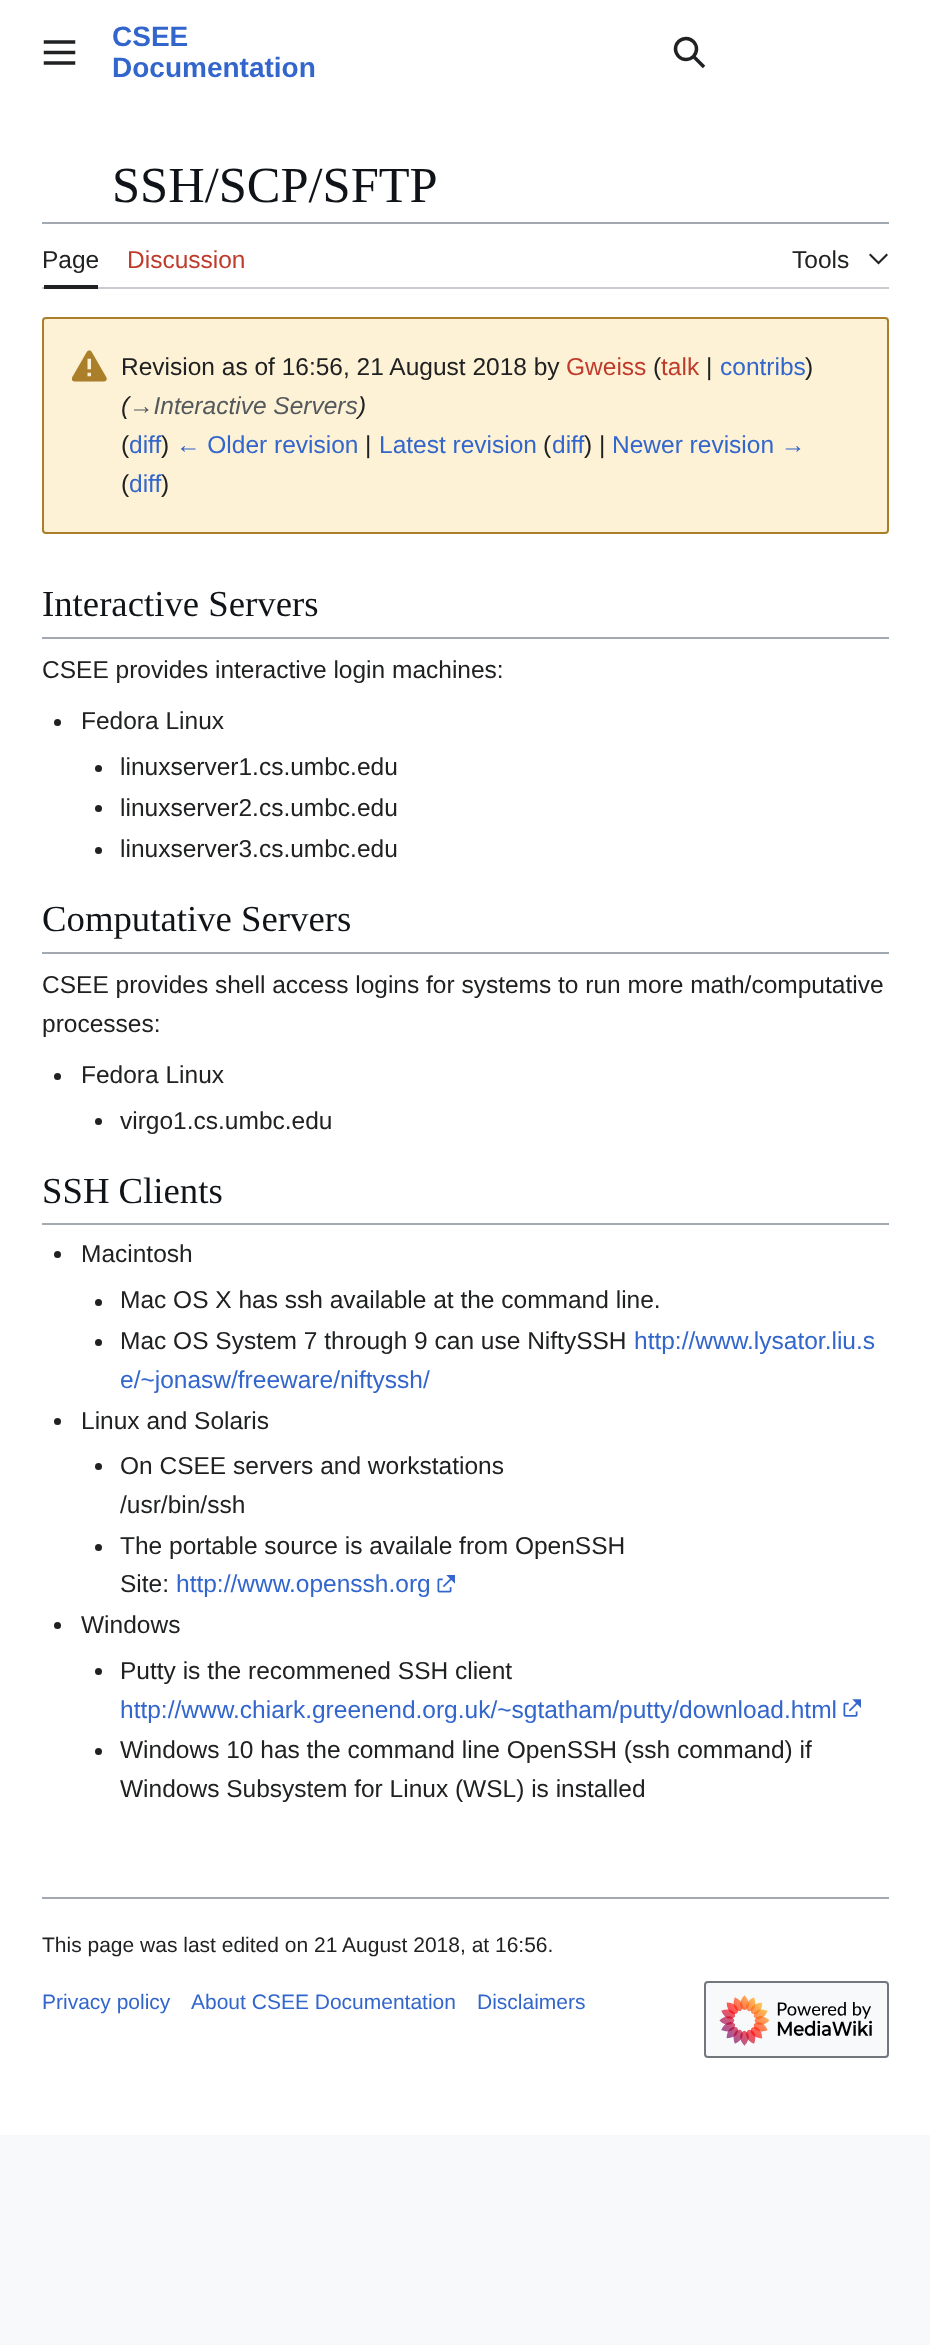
<svg xmlns="http://www.w3.org/2000/svg" width="930" height="2345" viewBox="0 0 930 2345">
  <rect width="100%" height="100%" fill="#f8f9fa"/>
  <rect x="0" y="0" width="930" height="2135" fill="#ffffff"/>
  <image x="43" y="40" width="33" height="25" href="img1.png"/>
  <text x="112" y="46" font-family="Liberation Sans" font-size="28" font-weight="bold" fill="#3366cc">CSEE</text>
  <text x="112" y="77" font-family="Liberation Sans" font-size="28" font-weight="bold" fill="#3366cc">Documentation</text>
  <image x="673" y="36" width="33" height="33" href="img2.png"/>
  <text x="112" y="202" font-family="Liberation Serif" font-size="50.5" fill="#101418">SSH/SCP/SFTP</text>
  <rect x="42" y="222" width="847" height="2" fill="#a2a9b1"/>
  <rect x="42" y="287" width="847" height="2" fill="#c8ccd1"/>
  <rect x="44" y="285" width="54" height="4" fill="#202122"/>
  <text x="42" y="268" font-family="Liberation Sans" font-size="24.5" fill="#202122">Page</text>
  <text x="127" y="268" font-family="Liberation Sans" font-size="24.5" fill="#bf3c2c">Discussion</text>
  <text x="792" y="268" font-family="Liberation Sans" font-size="24.5" fill="#202122">Tools</text>
  <path d="M886.5 253.5L878.5 261.5L870.5 253.5L869 255L878.5 264.5L888 255Z" fill="#202122"/>
  <rect x="43" y="318" width="845" height="215" rx="3" fill="#fdf2d5" stroke="#ab7f2a" stroke-width="2"/>
  <image x="72" y="350" width="35" height="32" href="img3.png"/>
  <text x="121" y="375" font-family="Liberation Sans" font-size="24.5" fill="#202122">Revision as of 16:56, 21 August 2018 by</text>
  <text x="566" y="375" font-family="Liberation Sans" font-size="24.5" fill="#bf3c2c">Gweiss</text>
  <text x="653" y="375" font-family="Liberation Sans" font-size="24.5" fill="#202122">(</text>
  <text x="661" y="375" font-family="Liberation Sans" font-size="24.5" fill="#bf3c2c">talk</text>
  <text x="706" y="375" font-family="Liberation Sans" font-size="24.5" fill="#202122">|</text>
  <text x="720" y="375" font-family="Liberation Sans" font-size="24.5" fill="#3366cc">contribs</text>
  <text x="805" y="375" font-family="Liberation Sans" font-size="24.5" fill="#202122">)</text>
  <text x="121" y="414" font-family="Liberation Sans" font-size="24.5" font-style="italic" fill="#202122">(</text>
  <text x="129" y="414" font-family="Liberation Sans" font-size="24.5" font-style="italic" fill="#54595d">→Interactive Servers</text>
  <text x="358" y="414" font-family="Liberation Sans" font-size="24.5" font-style="italic" fill="#202122">)</text>
  <text x="121" y="453" font-family="Liberation Sans" font-size="24.5" fill="#202122">(</text>
  <text x="129" y="453" font-family="Liberation Sans" font-size="24.5" fill="#3366cc">diff</text>
  <text x="161" y="453" font-family="Liberation Sans" font-size="24.5" fill="#202122">)</text>
  <text x="176" y="453" font-family="Liberation Sans" font-size="24.5" fill="#3366cc">← Older revision</text>
  <text x="365" y="453" font-family="Liberation Sans" font-size="24.5" fill="#202122">|</text>
  <text x="379" y="453" font-family="Liberation Sans" font-size="24.5" fill="#3366cc">Latest revision</text>
  <text x="543" y="453" font-family="Liberation Sans" font-size="24.5" fill="#202122">(</text>
  <text x="552" y="453" font-family="Liberation Sans" font-size="24.5" fill="#3366cc">diff</text>
  <text x="584" y="453" font-family="Liberation Sans" font-size="24.5" fill="#202122">) |</text>
  <text x="612" y="453" font-family="Liberation Sans" font-size="24.5" fill="#3366cc">Newer revision →</text>
  <text x="121" y="492" font-family="Liberation Sans" font-size="24.5" fill="#202122">(</text>
  <text x="129" y="492" font-family="Liberation Sans" font-size="24.5" fill="#3366cc">diff</text>
  <text x="161" y="492" font-family="Liberation Sans" font-size="24.5" fill="#202122">)</text>
  <rect x="42" y="637" width="847" height="2" fill="#a2a9b1"/>
  <text x="42" y="616" font-family="Liberation Serif" font-size="36.75" fill="#101418">Interactive Servers</text>
  <text x="42" y="678" font-family="Liberation Sans" font-size="24.5" fill="#202122">CSEE provides interactive login machines:</text>
  <circle cx="57.5" cy="722.5" r="3.5" fill="#202122"/>
  <text x="81" y="729" font-family="Liberation Sans" font-size="24.5" fill="#202122">Fedora Linux</text>
  <circle cx="98.5" cy="768.5" r="3.5" fill="#202122"/>
  <text x="120" y="775" font-family="Liberation Sans" font-size="24.5" fill="#202122">linuxserver1.cs.umbc.edu</text>
  <circle cx="98.5" cy="808.5" r="3.5" fill="#202122"/>
  <text x="120" y="816" font-family="Liberation Sans" font-size="24.5" fill="#202122">linuxserver2.cs.umbc.edu</text>
  <circle cx="98.5" cy="850.5" r="3.5" fill="#202122"/>
  <text x="120" y="857" font-family="Liberation Sans" font-size="24.5" fill="#202122">linuxserver3.cs.umbc.edu</text>
  <rect x="42" y="952" width="847" height="2" fill="#a2a9b1"/>
  <text x="42" y="931" font-family="Liberation Serif" font-size="36.75" fill="#101418">Computative Servers</text>
  <text x="42" y="993" font-family="Liberation Sans" font-size="24.5" fill="#202122">CSEE provides shell access logins for systems to run more math/computative</text>
  <text x="42" y="1032" font-family="Liberation Sans" font-size="24.5" fill="#202122">processes:</text>
  <circle cx="57.5" cy="1076.5" r="3.5" fill="#202122"/>
  <text x="81" y="1083" font-family="Liberation Sans" font-size="24.5" fill="#202122">Fedora Linux</text>
  <circle cx="98.5" cy="1121.5" r="3.5" fill="#202122"/>
  <text x="120" y="1129" font-family="Liberation Sans" font-size="24.5" fill="#202122">virgo1.cs.umbc.edu</text>
  <rect x="42" y="1223" width="847" height="2" fill="#a2a9b1"/>
  <text x="42" y="1203" font-family="Liberation Serif" font-size="36.75" fill="#101418">SSH Clients</text>
  <circle cx="57.5" cy="1254.5" r="3.5" fill="#202122"/>
  <text x="81" y="1262" font-family="Liberation Sans" font-size="24.5" fill="#202122">Macintosh</text>
  <circle cx="98.5" cy="1302.5" r="3.5" fill="#202122"/>
  <text x="120" y="1308" font-family="Liberation Sans" font-size="24.5" fill="#202122">Mac OS X has ssh available at the command line.</text>
  <circle cx="98.5" cy="1342.5" r="3.5" fill="#202122"/>
  <text x="120" y="1349" font-family="Liberation Sans" font-size="24.5" fill="#202122">Mac OS System 7 through 9 can use NiftySSH</text>
  <text x="634" y="1349" font-family="Liberation Sans" font-size="24.5" fill="#3366cc">http://www.lysator.liu.s</text>
  <text x="120" y="1388" font-family="Liberation Sans" font-size="24.5" fill="#3366cc">e/~jonasw/freeware/niftyssh/</text>
  <circle cx="57.5" cy="1421.5" r="3.5" fill="#202122"/>
  <text x="81" y="1429" font-family="Liberation Sans" font-size="24.5" fill="#202122">Linux and Solaris</text>
  <circle cx="98.5" cy="1466.5" r="3.5" fill="#202122"/>
  <text x="120" y="1474" font-family="Liberation Sans" font-size="24.5" fill="#202122">On CSEE servers and workstations</text>
  <text x="120" y="1513" font-family="Liberation Sans" font-size="24.5" fill="#202122">/usr/bin/ssh</text>
  <circle cx="98.5" cy="1547.5" r="3.5" fill="#202122"/>
  <text x="120" y="1554" font-family="Liberation Sans" font-size="24.5" fill="#202122">The portable source is availale from OpenSSH</text>
  <text x="120" y="1592" font-family="Liberation Sans" font-size="24.5" fill="#202122">Site:</text>
  <text x="176" y="1592" font-family="Liberation Sans" font-size="24.5" fill="#3366cc">http://www.openssh.org</text>
  <image x="437" y="1575" width="18" height="18" href="img4.png"/>
  <circle cx="57.5" cy="1625.5" r="3.5" fill="#202122"/>
  <text x="81" y="1633" font-family="Liberation Sans" font-size="24.5" fill="#202122">Windows</text>
  <circle cx="98.5" cy="1671.5" r="3.5" fill="#202122"/>
  <text x="120" y="1679" font-family="Liberation Sans" font-size="24.5" fill="#202122">Putty is the recommened SSH client</text>
  <text x="120" y="1718" font-family="Liberation Sans" font-size="24.5" fill="#3366cc">http://www.chiark.greenend.org.uk/~sgtatham/putty/download.html</text>
  <image x="843" y="1699" width="18" height="18" href="img5.png"/>
  <circle cx="98.5" cy="1751.5" r="3.5" fill="#202122"/>
  <text x="120" y="1758" font-family="Liberation Sans" font-size="24.5" fill="#202122">Windows 10 has the command line OpenSSH (ssh command) if</text>
  <text x="120" y="1797" font-family="Liberation Sans" font-size="24.5" fill="#202122">Windows Subsystem for Linux (WSL) is installed</text>
  <rect x="42" y="1897" width="847" height="2" fill="#a2a9b1"/>
  <text x="42" y="1952" font-family="Liberation Sans" font-size="21" fill="#202122">This page was last edited on 21 August 2018, at 16:56.</text>
  <text x="42" y="2009" font-family="Liberation Sans" font-size="21" fill="#3366cc">Privacy policy</text>
  <text x="191" y="2009" font-family="Liberation Sans" font-size="21" fill="#3366cc">About CSEE Documentation</text>
  <text x="477" y="2009" font-family="Liberation Sans" font-size="21" fill="#3366cc">Disclaimers</text>
  <rect x="705" y="1982" width="183" height="75" rx="3" fill="#f8f9fa" stroke="#72777d" stroke-width="2"/>
  <image x="719" y="1995" width="153" height="51" href="img6.png"/>
</svg>
